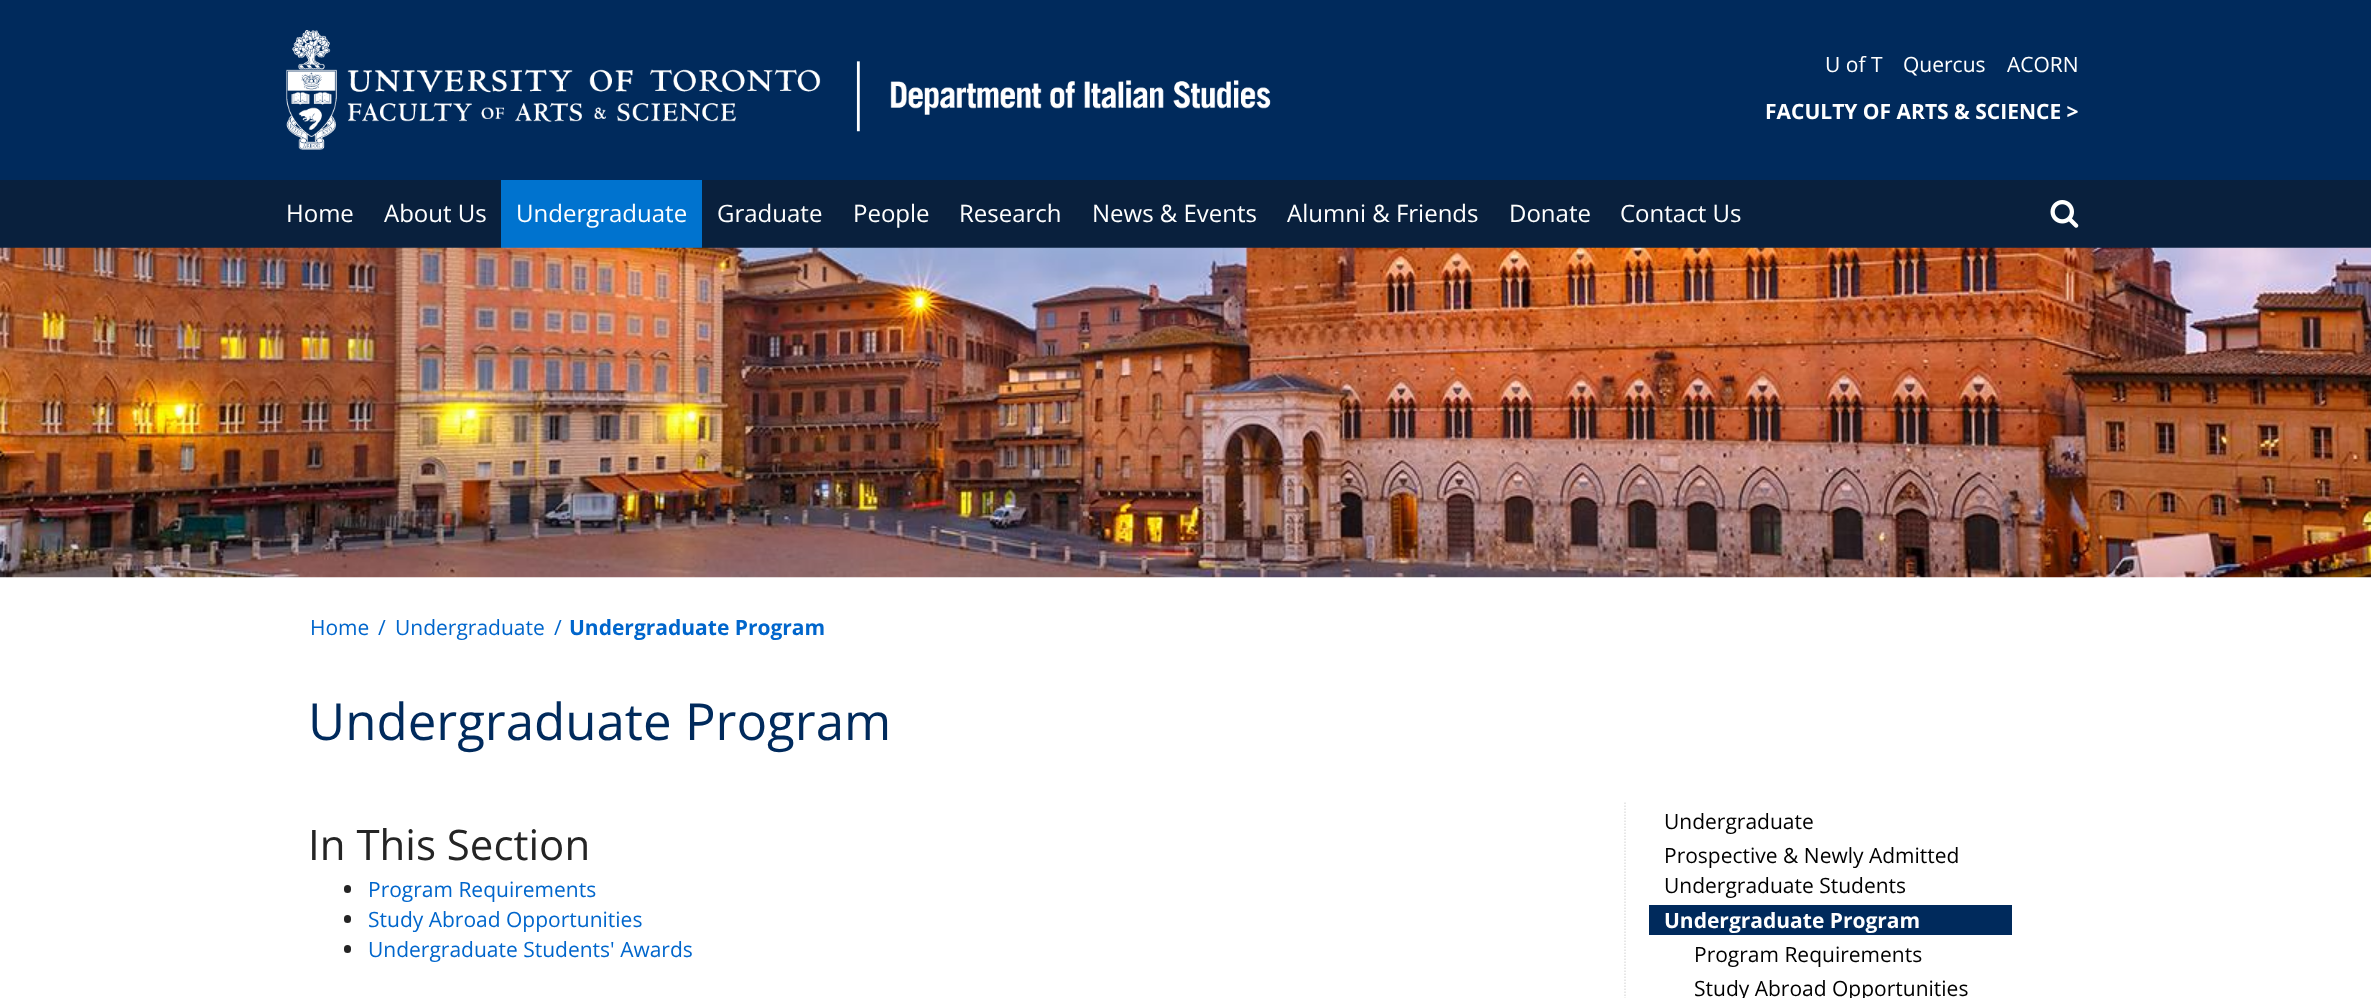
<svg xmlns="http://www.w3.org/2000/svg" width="2371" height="998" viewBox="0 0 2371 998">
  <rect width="100%" height="100%" fill="#ffffff"/>
  <rect x="0" y="0" width="2371" height="180" fill="#002a5c"/>
  <image x="286" y="30" width="985" height="120" href="img1.png"/>
  <text x="1825" y="72" font-family="Open Sans" font-size="21" fill="#ffffff">U of T</text>
  <text x="1903" y="72" font-family="Open Sans" font-size="21" fill="#ffffff">Quercus</text>
  <text x="2007" y="72" font-family="Open Sans" font-size="21" fill="#ffffff">ACORN</text>
  <text x="1765" y="119" font-family="Open Sans" font-size="21" font-weight="bold" fill="#ffffff">FACULTY OF ARTS &amp; SCIENCE &gt;</text>
  <rect x="0" y="180" width="2371" height="68" fill="#09203d"/>
  <text x="286" y="222" font-family="Open Sans" font-size="24" fill="#ffffff">Home</text>
  <text x="384" y="222" font-family="Open Sans" font-size="24" fill="#ffffff">About Us</text>
  <rect x="501" y="180" width="201" height="68" fill="#0073cf"/>
  <text x="516" y="222" font-family="Open Sans" font-size="24" fill="#ffffff">Undergraduate</text>
  <text x="717" y="222" font-family="Open Sans" font-size="24" fill="#ffffff">Graduate</text>
  <text x="853" y="222" font-family="Open Sans" font-size="24" fill="#ffffff">People</text>
  <text x="959" y="222" font-family="Open Sans" font-size="24" fill="#ffffff">Research</text>
  <text x="1092" y="222" font-family="Open Sans" font-size="24" fill="#ffffff">News &amp; Events</text>
  <text x="1287" y="222" font-family="Open Sans" font-size="24" fill="#ffffff">Alumni &amp; Friends</text>
  <text x="1509" y="222" font-family="Open Sans" font-size="24" fill="#ffffff">Donate</text>
  <text x="1620" y="222" font-family="Open Sans" font-size="24" fill="#ffffff">Contact Us</text>
  <image x="2050" y="200" width="29" height="28" href="img2.png"/>
  <image x="0" y="247" width="2371" height="331" href="img3.png"/>
  <text x="310" y="635" font-family="Open Sans" font-size="21" fill="#0066cc">Home</text>
  <text x="378" y="635" font-family="Open Sans" font-size="21" fill="#0066cc">/</text>
  <text x="395" y="635" font-family="Open Sans" font-size="21" fill="#0066cc">Undergraduate</text>
  <text x="554" y="635" font-family="Open Sans" font-size="21" fill="#0066cc">/</text>
  <text x="569" y="635" font-family="Open Sans" font-size="21" font-weight="bold" fill="#0066cc">Undergraduate Program</text>
  <text x="308" y="740" font-family="Open Sans" font-size="51" fill="#002a5c">Undergraduate Program</text>
  <text x="308" y="860" font-family="Open Sans" font-size="42" fill="#242424">In This Section</text>
  <rect x="344" y="885" width="7" height="8" rx="3.5" fill="#242424"/>
  <text x="368" y="897" font-family="Open Sans" font-size="21" fill="#0066cc">Program Requirements</text>
  <rect x="344" y="915" width="7" height="8" rx="3.5" fill="#242424"/>
  <text x="368" y="927" font-family="Open Sans" font-size="21" fill="#0066cc">Study Abroad Opportunities</text>
  <rect x="344" y="945" width="7" height="8" rx="3.5" fill="#242424"/>
  <text x="368" y="957" font-family="Open Sans" font-size="21" fill="#0066cc">Undergraduate Students' Awards</text>
  <path d="M1625 802.5V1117.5" fill="none" stroke="#e0e0e0" stroke-width="1.5" stroke-dasharray="1.5 1.5"/>
  <text x="1664" y="829" font-family="Open Sans" font-size="21" fill="#000000">Undergraduate</text>
  <text x="1664" y="863" font-family="Open Sans" font-size="21" fill="#000000">Prospective &amp; Newly Admitted</text>
  <text x="1664" y="893" font-family="Open Sans" font-size="21" fill="#000000">Undergraduate Students</text>
  <rect x="1649" y="905" width="363" height="30" fill="#002a5c"/>
  <text x="1664" y="928" font-family="Open Sans" font-size="21" font-weight="bold" fill="#ffffff">Undergraduate Program</text>
  <text x="1694" y="962" font-family="Open Sans" font-size="21" fill="#000000">Program Requirements</text>
  <text x="1694" y="996" font-family="Open Sans" font-size="21" fill="#000000">Study Abroad Opportunities</text>
</svg>
